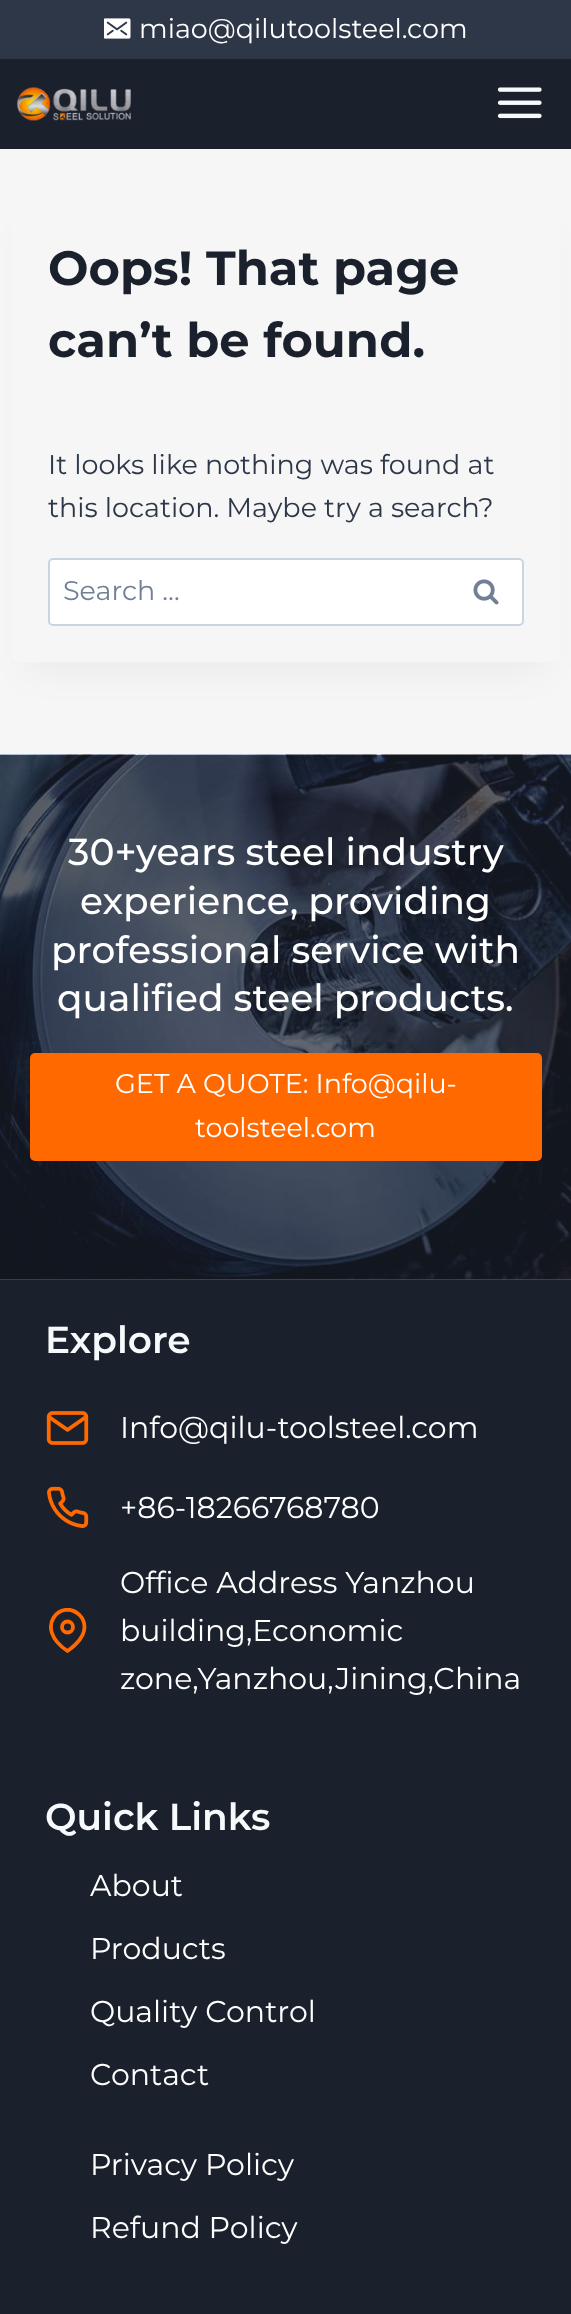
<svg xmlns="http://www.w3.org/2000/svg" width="571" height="2314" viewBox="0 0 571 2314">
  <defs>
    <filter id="blur1" x="-50%" y="-200%" width="200%" height="500%"><feGaussianBlur stdDeviation="19"/></filter>
    <clipPath id="clip1"><rect x="45" y="1608" width="45" height="45"/></clipPath>
  </defs>
  <rect width="100%" height="100%" fill="#f6f6f6"/>
  <rect x="0" y="1279" width="571" height="1" fill="#60646d"/>
  <rect x="0" y="0" width="571" height="59" fill="#2d3748"/>
  <image x="104" y="18" width="27" height="21" href="img1.png"/>
  <text x="139" y="38" font-family="Montserrat" font-size="27" fill="#ffffff">miao@qilutoolsteel.com</text>
  <rect x="0" y="59" width="571" height="90" fill="#1a202c"/>
  <image x="16" y="87" width="115" height="34" href="img2.png"/>
  <image x="497" y="87" width="45" height="32" href="img3.png"/>
  <rect x="27" y="234" width="518" height="435" fill="#000000" fill-opacity="0.05" filter="url(#blur1)"/>
  <rect x="12" y="197" width="548" height="465" rx="6" fill="#f6f6f6"/>
  <text x="48" y="285" font-family="Montserrat" font-size="48" font-weight="bold" fill="#1a202c">Oops! That page</text>
  <text x="48" y="357" font-family="Montserrat" font-size="48" font-weight="bold" fill="#1a202c">can’t be found.</text>
  <text x="48" y="474" font-family="Montserrat" font-size="27" fill="#2d3748">It looks like nothing was found at</text>
  <text x="48" y="517" font-family="Montserrat" font-size="27" fill="#2d3748">this location. Maybe try a search?</text>
  <rect x="49" y="559" width="474" height="66" rx="4" fill="#ffffff" stroke="#cbd5e0" stroke-width="2"/>
  <text x="63" y="600" font-family="Montserrat" font-size="27" fill="#718096">Search …</text>
  <image x="473" y="579" width="26" height="26" href="img4.png"/>
  <image x="0" y="754" width="571" height="526" href="img5.png"/>
  <text x="68" y="865" font-family="Montserrat" font-size="37.5" font-weight="500" fill="#ffffff">30+years steel industry</text>
  <text x="80" y="914" font-family="Montserrat" font-size="37.5" font-weight="500" fill="#ffffff">experience, providing</text>
  <text x="51" y="963" font-family="Montserrat" font-size="37.5" font-weight="500" fill="#ffffff">professional service with</text>
  <text x="57" y="1011" font-family="Montserrat" font-size="37.5" font-weight="500" fill="#ffffff">qualified steel products.</text>
  <rect x="30" y="1053" width="512" height="108" rx="5" fill="#ff6900"/>
  <text x="115" y="1093" font-family="Montserrat" font-size="27" fill="#ffffff">GET A QUOTE: Info@qilu-</text>
  <text x="195" y="1137" font-family="Montserrat" font-size="27" fill="#ffffff">toolsteel.com</text>
  <rect x="0" y="1280" width="571" height="1034" fill="#1a202c"/>
  <text x="45" y="1353" font-family="Montserrat" font-size="37.5" font-weight="600" fill="#f7fafc">Explore</text>
  <image x="46" y="1411" width="43" height="34" href="img6.png"/>
  <text x="120" y="1438" font-family="Montserrat" font-size="30" fill="#ffffff">Info@qilu-toolsteel.com</text>
  <image x="47" y="1486" width="42" height="42" href="img7.png"/>
  <text x="120" y="1518" font-family="Montserrat" font-size="30" fill="#ffffff">+86-18266768780</text>
  <g clip-path="url(#clip1)">
    <path d="M84.5 1627C84.5 1640 67.5 1651 67.5 1651C32 1627.5 62 1597.5 79.5 1615C82.5 1618 84.5 1622.5 84.5 1627Z" fill="none" stroke="#ff6900" stroke-width="3.8" stroke-linecap="round" stroke-linejoin="round"/>
  </g>
  <circle cx="67.5" cy="1627" r="5.5" fill="none" stroke="#ff6900" stroke-width="3.8"/>
  <text x="120" y="1593" font-family="Montserrat" font-size="30" fill="#ffffff">Office Address Yanzhou</text>
  <text x="120" y="1641" font-family="Montserrat" font-size="30" fill="#ffffff">building,Economic</text>
  <text x="120" y="1689" font-family="Montserrat" font-size="30" fill="#ffffff">zone,Yanzhou,Jining,China</text>
  <text x="45" y="1830" font-family="Montserrat" font-size="37.5" font-weight="600" fill="#f7fafc">Quick Links</text>
  <text x="90" y="1896" font-family="Montserrat" font-size="30" fill="#ffffff">About</text>
  <text x="90" y="1959" font-family="Montserrat" font-size="30" fill="#ffffff">Products</text>
  <text x="90" y="2022" font-family="Montserrat" font-size="30" fill="#ffffff">Quality Control</text>
  <text x="90" y="2085" font-family="Montserrat" font-size="30" fill="#ffffff">Contact</text>
  <text x="90" y="2175" font-family="Montserrat" font-size="30" fill="#ffffff">Privacy Policy</text>
  <text x="90" y="2238" font-family="Montserrat" font-size="30" fill="#ffffff">Refund Policy</text>
</svg>
